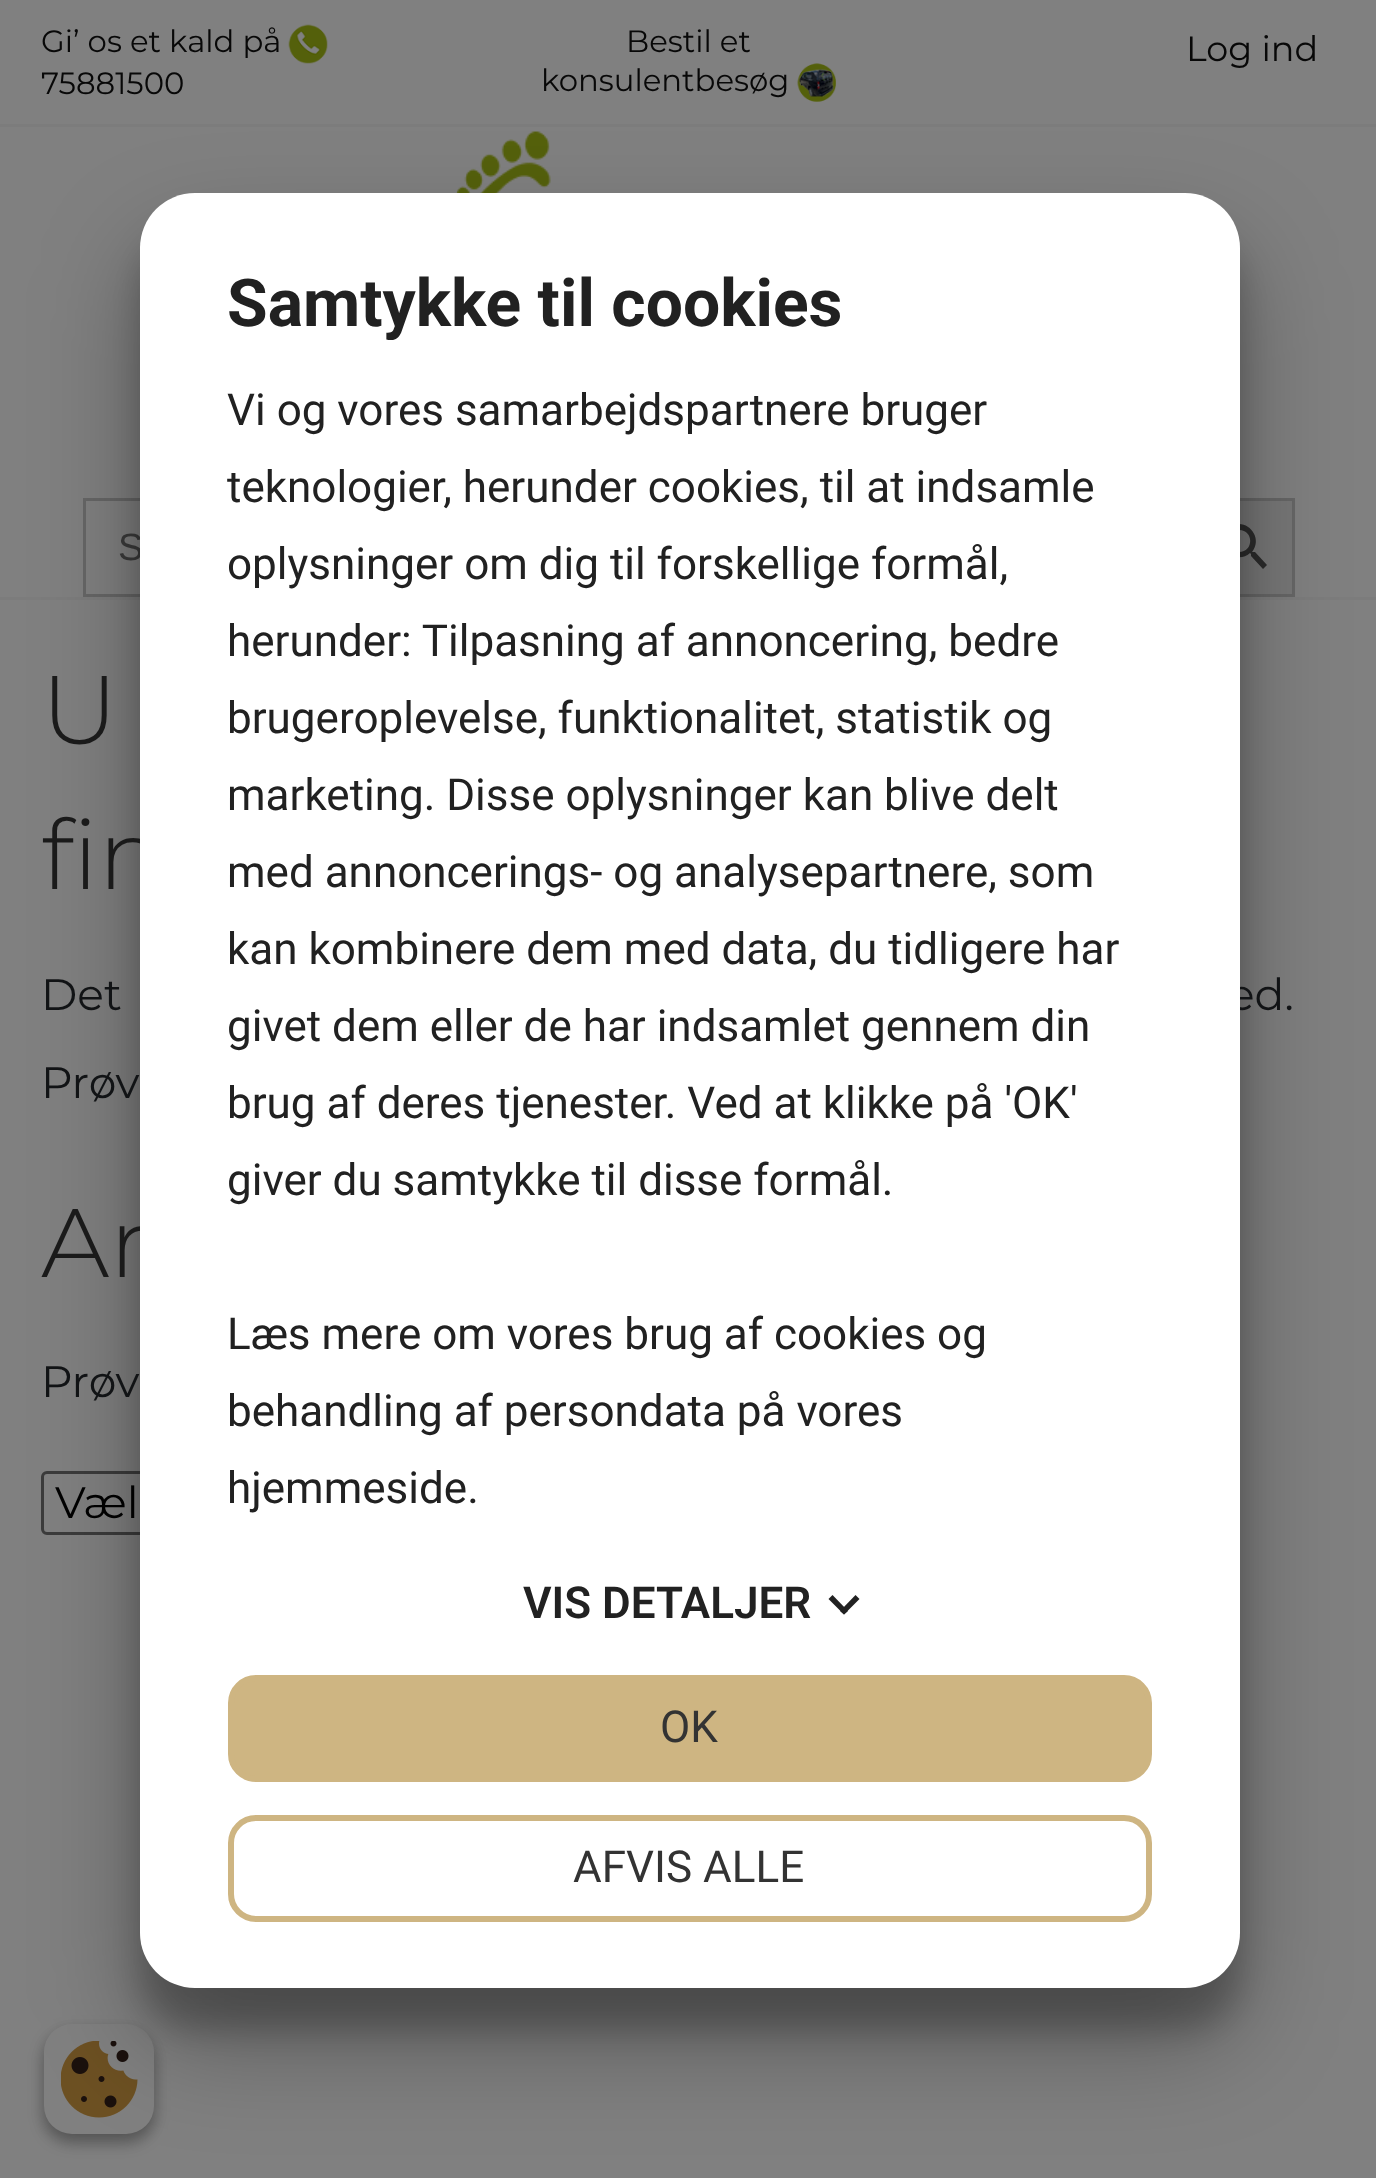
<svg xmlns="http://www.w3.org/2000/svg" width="1376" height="2178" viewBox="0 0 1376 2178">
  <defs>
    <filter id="blur1" x="-50%" y="-200%" width="200%" height="500%"><feGaussianBlur stdDeviation="8"/></filter>
    <filter id="blur2" x="-50%" y="-200%" width="200%" height="500%"><feGaussianBlur stdDeviation="16.5"/></filter>
    <filter id="blur3" x="-50%" y="-200%" width="200%" height="500%"><feGaussianBlur stdDeviation="52"/></filter>
  </defs>
  <rect width="100%" height="100%" fill="#808080"/>
  <rect x="0" y="124" width="1376" height="3" fill="#7c7c7c"/>
  <text x="41" y="52" font-family="Montserrat" font-size="30.75" fill="#080808">Gi’ os et kald på</text>
  <image x="288" y="24" width="40" height="40" href="img1.png"/>
  <text x="41" y="94" font-family="Montserrat" font-size="30.75" fill="#080808">75881500</text>
  <text x="626" y="52" font-family="Montserrat" font-size="30.75" fill="#080808">Bestil et</text>
  <text x="541" y="91" font-family="Montserrat" font-size="30.75" fill="#080808">konsulentbesøg</text>
  <image x="797" y="63" width="39" height="39" href="img2.png"/>
  <text x="1186" y="61" font-family="Montserrat" font-size="35" fill="#080808">Log ind</text>
  <rect x="0" y="597" width="1376" height="3" fill="#7c7c7c"/>
  <image x="456" y="131" width="95" height="62" href="img3.png"/>
  <rect x="83" y="498" width="57" height="3" fill="#666666"/>
  <rect x="83" y="594" width="57" height="3" fill="#666666"/>
  <rect x="83" y="498" width="3" height="99" fill="#666666"/>
  <text x="118" y="560" font-family="Liberation Sans" font-size="38" fill="#3b3b3b">S</text>
  <rect x="1240" y="501" width="52" height="93" fill="#777777"/>
  <rect x="1197.5" y="499.5" width="96" height="96" fill="none" stroke="#666666" stroke-width="3"/>
  <path d="M1255 552H1253H1252C1265 536 1243 514 1228 529C1213 544 1235 567 1250 553L1251 554V556L1263 569L1267 565ZM1239 552C1225 552 1225 530 1239 530C1254 530 1254 552 1239 552Z" fill="#2b2b2b"/>
  <rect x="42.5" y="1472.5" width="344" height="61" rx="4.5" fill="none" stroke="#3b3b3b" stroke-width="3"/>
  <rect x="44" y="2032" width="110" height="110" rx="28" fill="#000000" fill-opacity="0.23" filter="url(#blur1)"/>
  <rect x="44" y="2032" width="110" height="110" rx="28" fill="#000000" fill-opacity="0.16" filter="url(#blur1)"/>
  <rect x="44" y="2024" width="110" height="110" rx="28" fill="#808080"/>
  <image x="61" y="2041" width="77" height="77" href="img4.png"/>
  <rect x="140" y="234" width="1100" height="1796" rx="55" fill="#000000" fill-opacity="0.22" filter="url(#blur2)"/>
  <rect x="140" y="245" width="1100" height="1796" rx="55" fill="#000000" fill-opacity="0.3" filter="url(#blur3)"/>
  <text x="41" y="889" font-family="Montserrat" font-size="97" font-weight="300" fill="#1a1a1a">fin</text>
  <text x="1228" y="1010" font-family="Montserrat" font-size="44" fill="#111315">ed.</text>
  <text x="41" y="1277" font-family="Montserrat" font-size="97" font-weight="300" fill="#1a1a1a">Ar</text>
  <rect x="140" y="193" width="1100" height="1795" rx="55" fill="#ffffff"/>
  <text x="227" y="326" font-family="Roboto" font-size="66" font-weight="bold" fill="#212121">Samtykke til cookies</text>
  <text x="227" y="425" font-family="Roboto" font-size="44" fill="#212121">Vi og vores samarbejdspartnere bruger</text>
  <text x="227" y="502" font-family="Roboto" font-size="44" fill="#212121">teknologier, herunder cookies, til at indsamle</text>
  <text x="227" y="579" font-family="Roboto" font-size="44" fill="#212121">oplysninger om dig til forskellige formål,</text>
  <text x="227" y="656" font-family="Roboto" font-size="44" fill="#212121">herunder: Tilpasning af annoncering, bedre</text>
  <text x="227" y="733" font-family="Roboto" font-size="44" fill="#212121">brugeroplevelse, funktionalitet, statistik og</text>
  <text x="227" y="810" font-family="Roboto" font-size="44" fill="#212121">marketing. Disse oplysninger kan blive delt</text>
  <text x="227" y="887" font-family="Roboto" font-size="44" fill="#212121">med annoncerings- og analysepartnere, som</text>
  <text x="227" y="964" font-family="Roboto" font-size="44" fill="#212121">kan kombinere dem med data, du tidligere har</text>
  <text x="227" y="1041" font-family="Roboto" font-size="44" fill="#212121">givet dem eller de har indsamlet gennem din</text>
  <text x="227" y="1118" font-family="Roboto" font-size="44" fill="#212121">brug af deres tjenester. Ved at klikke på 'OK'</text>
  <text x="227" y="1195" font-family="Roboto" font-size="44" fill="#212121">giver du samtykke til disse formål.</text>
  <text x="227" y="1349" font-family="Roboto" font-size="44" fill="#212121">Læs mere om vores brug af cookies og</text>
  <text x="227" y="1426" font-family="Roboto" font-size="44" fill="#212121">behandling af persondata på vores</text>
  <text x="227" y="1503" font-family="Roboto" font-size="44" fill="#212121">hjemmeside.</text>
  <text x="523" y="1618" font-family="Roboto" font-size="44" font-weight="600" fill="#212121">VIS DETALJER</text>
  <path d="M855.5 1595L859.5 1599L844 1614.5L840 1611Z" fill="#212121"/>
  <path d="M832.5 1595L848 1611L844 1614.5L828.5 1599Z" fill="#212121"/>
  <rect x="231" y="1678" width="918" height="101" rx="25" fill="#ceb582" stroke="#ceb582" stroke-width="6"/>
  <text x="660" y="1742" font-family="Roboto" font-size="44" fill="#333333">OK</text>
  <rect x="231" y="1818" width="918" height="101" rx="25" fill="none" stroke="#ceb582" stroke-width="6"/>
  <text x="573" y="1882" font-family="Roboto" font-size="44" fill="#333333">AFVIS ALLE</text>
  <text x="41" y="744" font-family="Montserrat" font-size="97" font-weight="300" fill="#1a1a1a">U</text>
  <text x="41" y="1010" font-family="Montserrat" font-size="44" fill="#111315">Det</text>
  <text x="41" y="1098" font-family="Montserrat" font-size="44" fill="#111315">Prøv</text>
  <text x="41" y="1397" font-family="Montserrat" font-size="44" fill="#111315">Prøv</text>
  <text x="55" y="1518" font-family="Montserrat" font-size="44" fill="#000000">Væl</text>
</svg>
